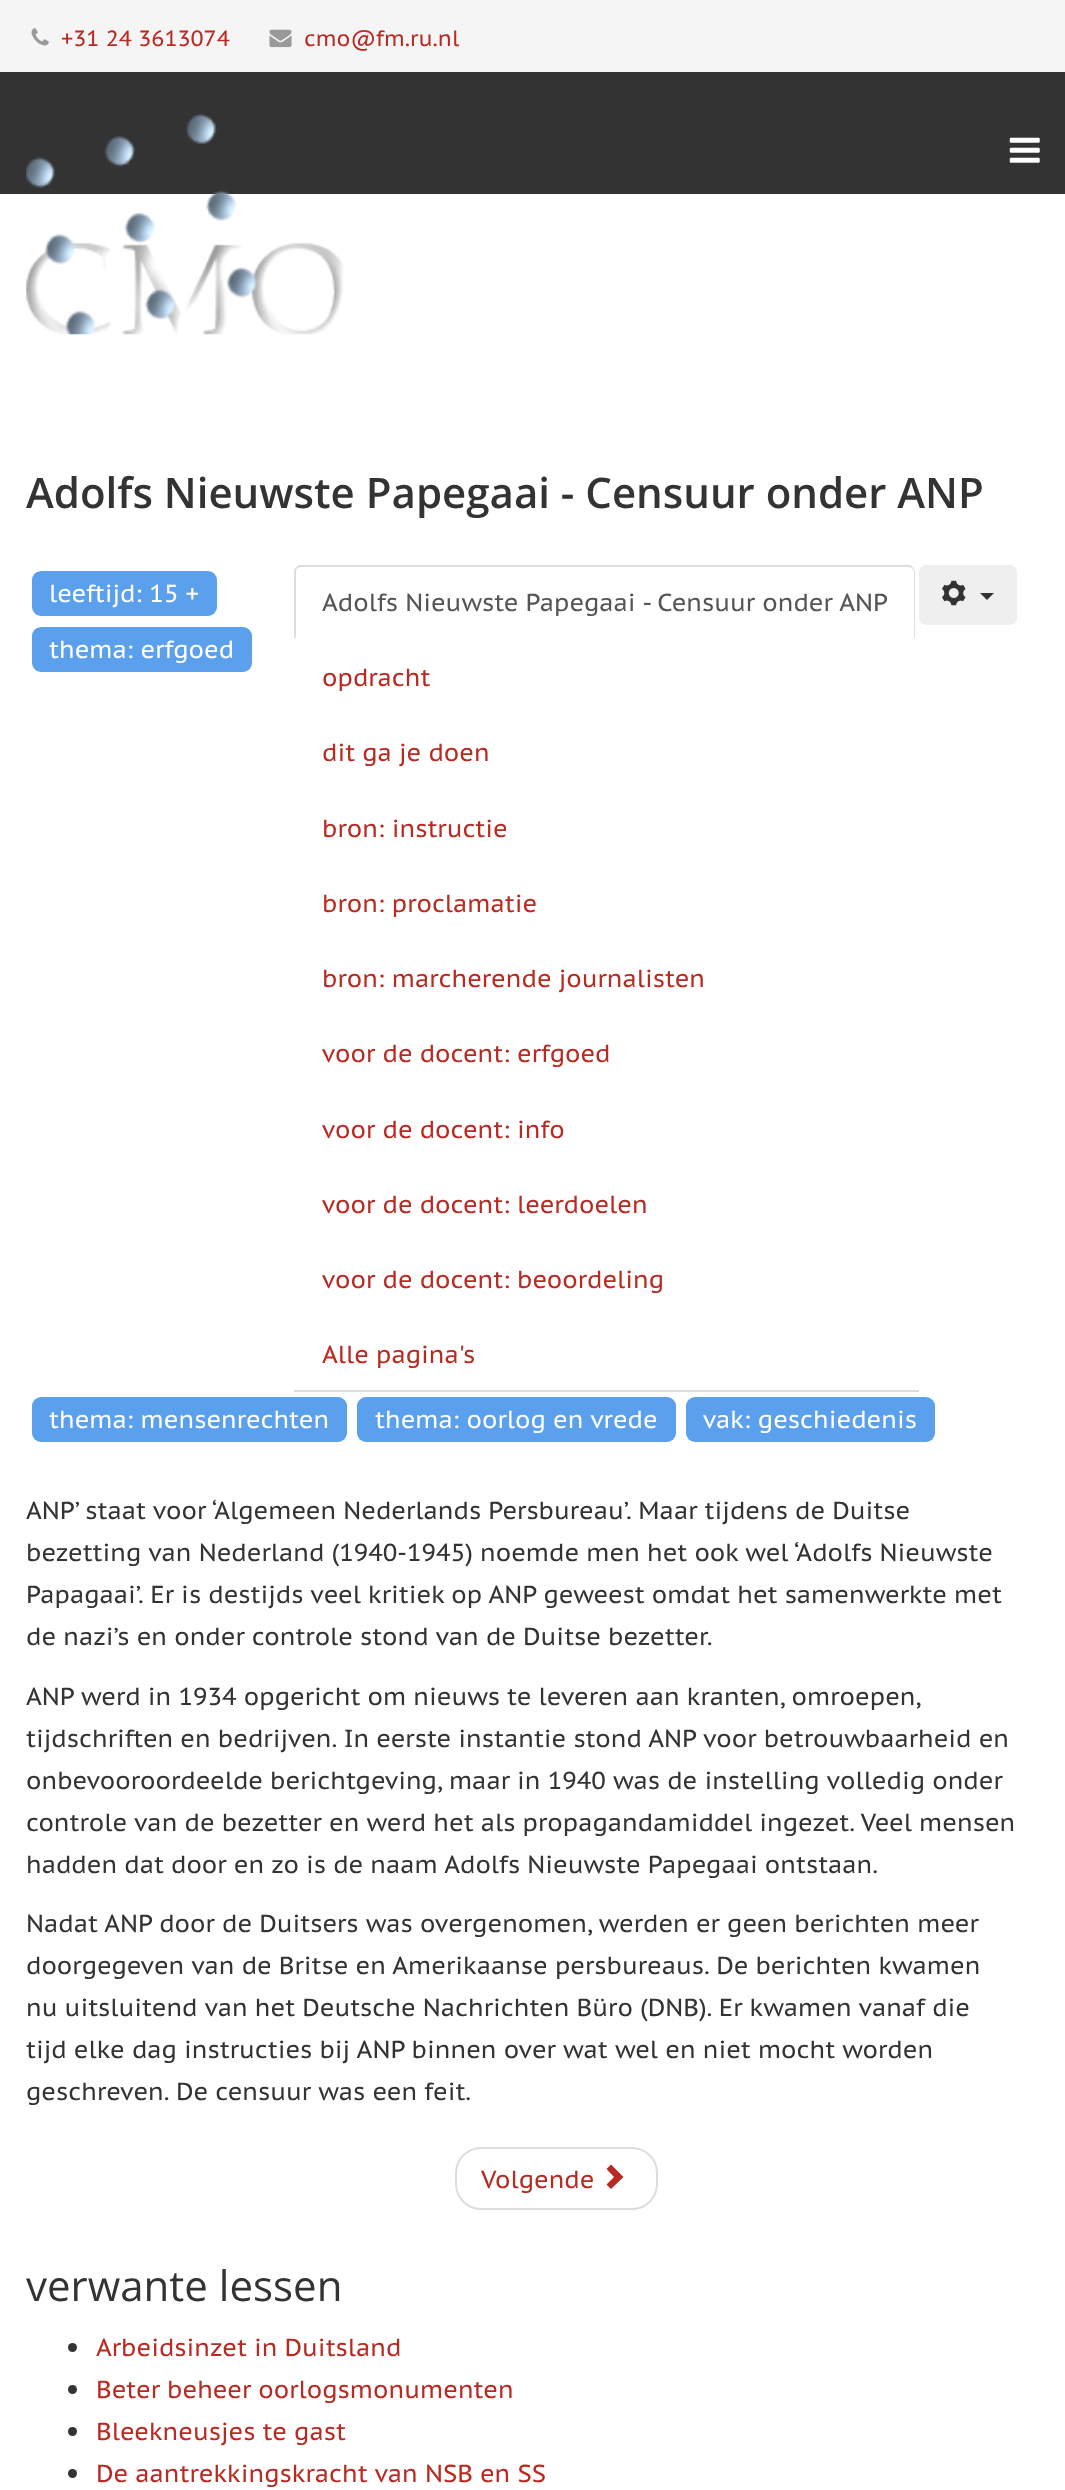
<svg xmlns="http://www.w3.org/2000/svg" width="1065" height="2490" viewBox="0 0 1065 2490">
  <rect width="100%" height="100%" fill="#ffffff"/>
  <rect x="0" y="0" width="1065" height="72" fill="#f5f5f5"/>
  <image x="31" y="28" width="18" height="18" href="img1.png"/>
  <text x="61" y="46" font-family="PT Sans Caption" font-size="22" fill="#b82b22">+31 24 3613074</text>
  <image x="269" y="29" width="23" height="19" href="img2.png"/>
  <text x="304" y="46" font-family="PT Sans Caption" font-size="22" fill="#b82b22">cmo@fm.ru.nl</text>
  <rect x="0" y="72" width="1065" height="122" fill="#333333"/>
  <image x="26" y="113" width="318" height="222" href="img3.png"/>
  <image x="1009" y="137" width="31" height="26" href="img4.png"/>
  <text x="26" y="508" font-family="Open Sans" font-size="42" font-weight="600" fill="#333333">Adolfs Nieuwste Papegaai - Censuur onder ANP</text>
  <rect x="919" y="565" width="98" height="60" rx="7" fill="#efefef"/>
  <image x="942" y="580" width="24" height="26" href="img5.png"/>
  <path d="M980 593H994L987 600Z" fill="#333333"/>
  <rect x="32" y="571" width="185" height="45" rx="9" fill="#5ba0ed"/>
  <text x="49" y="602" font-family="PT Sans Caption" font-size="24.5" fill="#ffffff">leeftijd: 15 +</text>
  <rect x="32" y="627" width="220" height="45" rx="9" fill="#5ba0ed"/>
  <text x="49" y="658" font-family="PT Sans Caption" font-size="24.5" fill="#ffffff">thema: erfgoed</text>
  <rect x="32" y="1397" width="315" height="45" rx="9" fill="#5ba0ed"/>
  <text x="49" y="1428" font-family="PT Sans Caption" font-size="24.5" fill="#ffffff">thema: mensenrechten</text>
  <rect x="357" y="1397" width="319" height="45" rx="9" fill="#5ba0ed"/>
  <text x="375" y="1428" font-family="PT Sans Caption" font-size="24.5" fill="#ffffff">thema: oorlog en vrede</text>
  <rect x="686" y="1397" width="249" height="45" rx="9" fill="#5ba0ed"/>
  <text x="703" y="1428" font-family="PT Sans Caption" font-size="24.5" fill="#ffffff">vak: geschiedenis</text>
  <text x="26" y="1519" font-family="PT Sans Caption" font-size="24.5" fill="#333333">ANP’ staat voor ‘Algemeen Nederlands Persbureau’. Maar tijdens de Duitse</text>
  <text x="26" y="1561" font-family="PT Sans Caption" font-size="24.5" fill="#333333">bezetting van Nederland (1940-1945) noemde men het ook wel ‘Adolfs Nieuwste</text>
  <text x="26" y="1603" font-family="PT Sans Caption" font-size="24.5" fill="#333333">Papagaai’. Er is destijds veel kritiek op ANP geweest omdat het samenwerkte met</text>
  <text x="26" y="1645" font-family="PT Sans Caption" font-size="24.5" fill="#333333">de nazi’s en onder controle stond van de Duitse bezetter.</text>
  <text x="26" y="1705" font-family="PT Sans Caption" font-size="24.5" fill="#333333">ANP werd in 1934 opgericht om nieuws te leveren aan kranten, omroepen,</text>
  <text x="26" y="1747" font-family="PT Sans Caption" font-size="24.5" fill="#333333">tijdschriften en bedrijven. In eerste instantie stond ANP voor betrouwbaarheid en</text>
  <text x="26" y="1789" font-family="PT Sans Caption" font-size="24.5" fill="#333333">onbevooroordeelde berichtgeving, maar in 1940 was de instelling volledig onder</text>
  <text x="26" y="1831" font-family="PT Sans Caption" font-size="24.5" fill="#333333">controle van de bezetter en werd het als propagandamiddel ingezet. Veel mensen</text>
  <text x="26" y="1873" font-family="PT Sans Caption" font-size="24.5" fill="#333333">hadden dat door en zo is de naam Adolfs Nieuwste Papegaai ontstaan.</text>
  <text x="26" y="1932" font-family="PT Sans Caption" font-size="24.5" fill="#333333">Nadat ANP door de Duitsers was overgenomen, werden er geen berichten meer</text>
  <text x="26" y="1974" font-family="PT Sans Caption" font-size="24.5" fill="#333333">doorgegeven van de Britse en Amerikaanse persbureaus. De berichten kwamen</text>
  <text x="26" y="2016" font-family="PT Sans Caption" font-size="24.5" fill="#333333">nu uitsluitend van het Deutsche Nachrichten Büro (DNB). Er kwamen vanaf die</text>
  <text x="26" y="2058" font-family="PT Sans Caption" font-size="24.5" fill="#333333">tijd elke dag instructies bij ANP binnen over wat wel en niet mocht worden</text>
  <text x="26" y="2100" font-family="PT Sans Caption" font-size="24.5" fill="#333333">geschreven. De censuur was een feit.</text>
  <rect x="456" y="2148" width="201" height="61" rx="25" fill="none" stroke="#dddddd" stroke-width="2"/>
  <text x="481" y="2188" font-family="PT Sans Caption" font-size="24.5" fill="#b82b22">Volgende</text>
  <path d="M611 2164.5L623.5 2177L611 2189L606.5 2184.5L614 2177L606.5 2169Z" fill="#b82b22"/>
  <text x="26" y="2301" font-family="Open Sans" font-size="42" fill="#333333">verwante lessen</text>
  <circle cx="72.5" cy="2347.5" r="4.5" fill="#333333"/>
  <text x="96" y="2356" font-family="PT Sans Caption" font-size="24.5" fill="#b82b22">Arbeidsinzet in Duitsland</text>
  <circle cx="72.5" cy="2389.5" r="4.5" fill="#333333"/>
  <text x="96" y="2398" font-family="PT Sans Caption" font-size="24.5" fill="#b82b22">Beter beheer oorlogsmonumenten</text>
  <circle cx="72.5" cy="2431.5" r="4.5" fill="#333333"/>
  <text x="96" y="2440" font-family="PT Sans Caption" font-size="24.5" fill="#b82b22">Bleekneusjes te gast</text>
  <circle cx="72.5" cy="2473.5" r="4.5" fill="#333333"/>
  <text x="96" y="2482" font-family="PT Sans Caption" font-size="24.5" fill="#b82b22">De aantrekkingskracht van NSB en SS</text>
  <rect x="294" y="1390" width="625" height="2" fill="#dddddd"/>
  <path d="M301 567C299 567 298 568 297 569L296 567L299 565H910L913 567L912 568C911 568 910 567 908 567Z" fill="#dddddd"/>
  <path d="M913 567C914 568 915 570 915 572V638L914 637V571L912 568Z" fill="#dddddd"/>
  <path d="M294 639L296 637V572C296 571 296 569 297 569L296 567C295 568 294 570 294 572Z" fill="#dddddd"/>
  <text x="322" y="611" font-family="PT Sans Caption" font-size="24.5" fill="#555555">Adolfs Nieuwste Papegaai - Censuur onder ANP</text>
  <text x="322" y="686" font-family="PT Sans Caption" font-size="24.5" fill="#b82b22">opdracht</text>
  <text x="322" y="761" font-family="PT Sans Caption" font-size="24.5" fill="#b82b22">dit ga je doen</text>
  <text x="322" y="837" font-family="PT Sans Caption" font-size="24.5" fill="#b82b22">bron: instructie</text>
  <text x="322" y="912" font-family="PT Sans Caption" font-size="24.5" fill="#b82b22">bron: proclamatie</text>
  <text x="322" y="987" font-family="PT Sans Caption" font-size="24.5" fill="#b82b22">bron: marcherende journalisten</text>
  <text x="322" y="1062" font-family="PT Sans Caption" font-size="24.5" fill="#b82b22">voor de docent: erfgoed</text>
  <text x="322" y="1138" font-family="PT Sans Caption" font-size="24.5" fill="#b82b22">voor de docent: info</text>
  <text x="322" y="1213" font-family="PT Sans Caption" font-size="24.5" fill="#b82b22">voor de docent: leerdoelen</text>
  <text x="322" y="1288" font-family="PT Sans Caption" font-size="24.5" fill="#b82b22">voor de docent: beoordeling</text>
  <text x="322" y="1363" font-family="PT Sans Caption" font-size="24.5" fill="#b82b22">Alle pagina's</text>
</svg>
